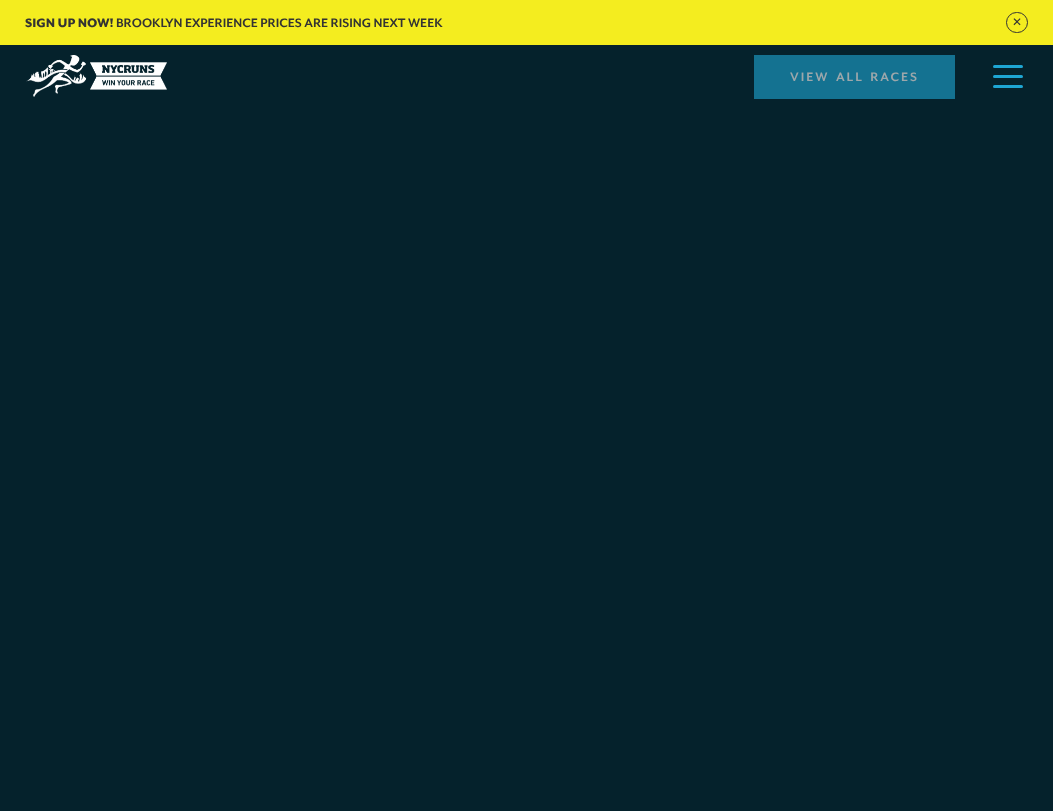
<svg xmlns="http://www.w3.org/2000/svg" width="1053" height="811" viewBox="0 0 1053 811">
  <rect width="100%" height="100%" fill="#05222c"/>
  <rect x="0" y="0" width="1053" height="45" fill="#f4ed1f"/>
  <text x="25" y="27" font-family="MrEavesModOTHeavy" font-size="14" font-weight="900" fill="#333333">SIGN UP NOW!</text>
  <text x="116" y="27" font-family="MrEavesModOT" font-size="14" font-weight="bold" fill="#333333">BROOKLYN EXPERIENCE PRICES ARE RISING NEXT WEEK</text>
  <rect x="1006.5" y="12.5" width="21" height="20" rx="10" fill="none" stroke="#333333"/>
  <text x="1012" y="26" font-family="DejaVu Sans" font-size="12" fill="#333333">✕</text>
  <image x="26" y="55" width="141" height="42" href="img1.png"/>
  <rect x="754" y="55" width="201" height="44" fill="#147291"/>
  <text x="790" y="81" word-spacing="2" font-family="MrEavesModOT" font-size="14" font-weight="bold" letter-spacing="2" fill="#9ca7ab">VIEW ALL RACES</text>
  <rect x="993" y="85" width="30" height="3" rx="1.5" fill="#1ea6d3"/>
  <rect x="993" y="65" width="30" height="3" rx="1.5" fill="#1ea6d3"/>
  <rect x="993" y="75" width="30" height="3" rx="1.5" fill="#1ea6d3"/>
</svg>
